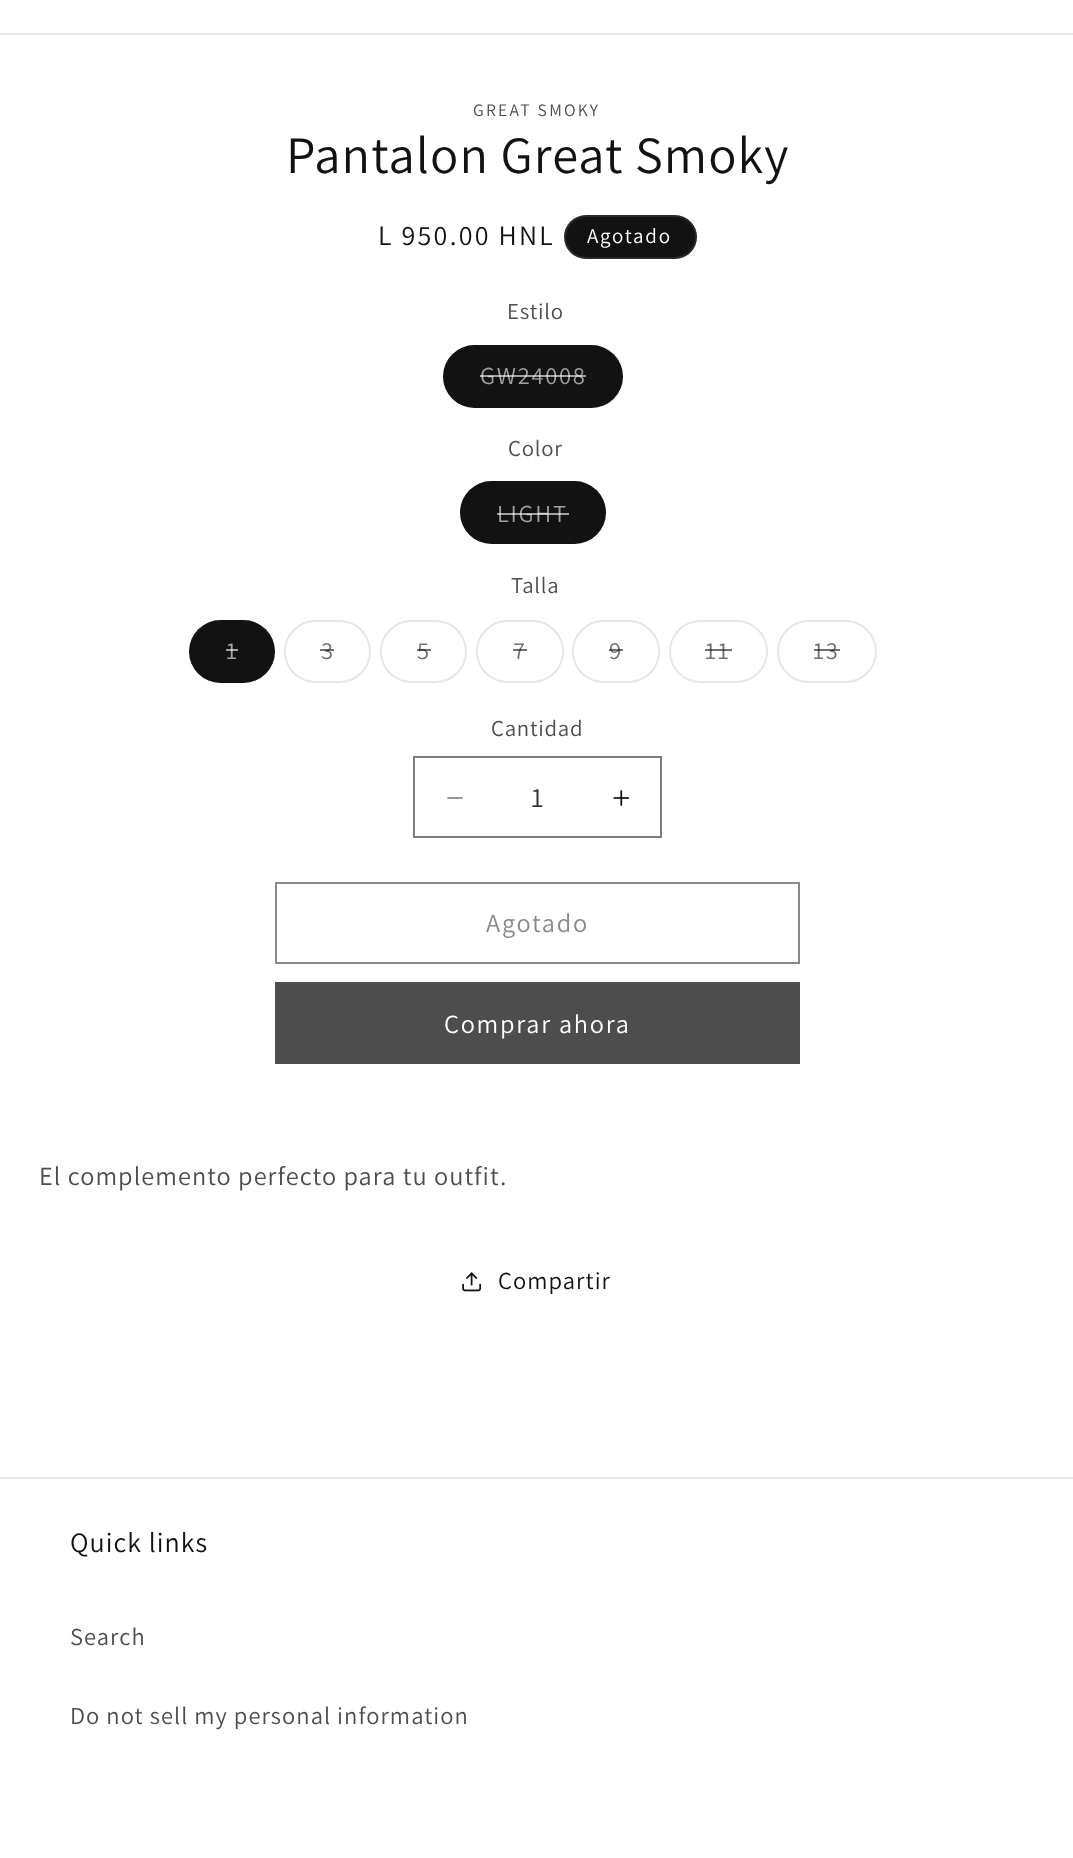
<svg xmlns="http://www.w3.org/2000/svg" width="1073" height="1858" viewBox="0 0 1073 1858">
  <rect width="100%" height="100%" fill="#ffffff"/>
  <rect x="0" y="33" width="1073" height="2" fill="#ececec"/>
  <text x="473" y="116" font-family="Assistant" font-size="17.5" letter-spacing="2.25" fill="#4d4d4d">GREAT SMOKY</text>
  <text x="286" y="173" font-family="Assistant" font-size="52.5" letter-spacing="1.05" fill="#121212">Pantalon Great Smoky</text>
  <text x="378" y="245" font-family="Assistant" font-size="28" letter-spacing="2.25" fill="#121212">L 950.00 HNL</text>
  <rect x="564" y="215" width="133" height="44" rx="22" fill="#121212"/>
  <rect x="565" y="216" width="131" height="42" rx="21" fill="none" stroke="#ffffff" stroke-opacity="0.1" stroke-width="2"/>
  <text x="587" y="243" font-family="Assistant" font-size="21" letter-spacing="1.75" fill="#ffffff">Agotado</text>
  <text x="507" y="319" font-family="Assistant" font-size="22.75" letter-spacing="0.75" fill="#4d4d4d">Estilo</text>
  <rect x="443" y="345" width="180" height="63" rx="31.5" fill="#121212"/>
  <rect x="444" y="346" width="178" height="61" rx="30.5" fill="none" stroke="#121212" stroke-opacity="0.1" stroke-width="2"/>
  <text x="480" y="384" font-family="Assistant" font-size="24.5" letter-spacing="1.75" fill="#a0a0a0">GW24008</text>
  <rect x="480" y="375" width="106" height="2" fill="#ffffff" fill-opacity="0.6"/>
  <text x="508" y="456" font-family="Assistant" font-size="22.75" letter-spacing="0.75" fill="#4d4d4d">Color</text>
  <rect x="460" y="481" width="146" height="63" rx="31.5" fill="#121212"/>
  <rect x="461" y="482" width="144" height="61" rx="30.5" fill="none" stroke="#121212" stroke-opacity="0.1" stroke-width="2"/>
  <text x="497" y="522" font-family="Assistant" font-size="24.5" letter-spacing="1.75" fill="#a0a0a0">LIGHT</text>
  <rect x="497" y="513" width="72" height="2" fill="#ffffff" fill-opacity="0.6"/>
  <text x="511" y="593" font-family="Assistant" font-size="22.75" letter-spacing="0.75" fill="#4d4d4d">Talla</text>
  <rect x="189" y="620" width="86" height="63" rx="31.5" fill="#121212"/>
  <rect x="190" y="621" width="84" height="61" rx="30.5" fill="none" stroke="#121212" stroke-opacity="0.1" stroke-width="2"/>
  <text x="226" y="659" font-family="Assistant" font-size="24.5" letter-spacing="1.75" fill="#a0a0a0">1</text>
  <rect x="226" y="649" width="12" height="2" fill="#ffffff" fill-opacity="0.6"/>
  <rect x="285" y="621" width="85" height="61" rx="30.5" fill="none" stroke="#e7e7e7" stroke-width="2"/>
  <text x="321" y="659" font-family="Assistant" font-size="24.5" letter-spacing="1.75" fill="#717171">3</text>
  <rect x="320" y="649" width="14" height="2" fill="#121212" fill-opacity="0.6"/>
  <rect x="381" y="621" width="85" height="61" rx="30.5" fill="none" stroke="#e7e7e7" stroke-width="2"/>
  <text x="417" y="659" font-family="Assistant" font-size="24.5" letter-spacing="1.75" fill="#717171">5</text>
  <rect x="417" y="649" width="14" height="2" fill="#121212" fill-opacity="0.6"/>
  <rect x="477" y="621" width="86" height="61" rx="30.5" fill="none" stroke="#e7e7e7" stroke-width="2"/>
  <text x="513" y="659" font-family="Assistant" font-size="24.5" letter-spacing="1.75" fill="#717171">7</text>
  <rect x="513" y="649" width="14" height="2" fill="#121212" fill-opacity="0.6"/>
  <rect x="573" y="621" width="86" height="61" rx="30.5" fill="none" stroke="#e7e7e7" stroke-width="2"/>
  <text x="609" y="659" font-family="Assistant" font-size="24.5" letter-spacing="1.75" fill="#717171">9</text>
  <rect x="609" y="649" width="14" height="2" fill="#121212" fill-opacity="0.6"/>
  <rect x="670" y="621" width="97" height="61" rx="30.5" fill="none" stroke="#e7e7e7" stroke-width="2"/>
  <text x="705" y="659" font-family="Assistant" font-size="24.5" letter-spacing="1.75" fill="#717171">11</text>
  <rect x="705" y="649" width="27" height="2" fill="#121212" fill-opacity="0.6"/>
  <rect x="778" y="621" width="98" height="61" rx="30.5" fill="none" stroke="#e7e7e7" stroke-width="2"/>
  <text x="813" y="659" font-family="Assistant" font-size="24.5" letter-spacing="1.75" fill="#717171">13</text>
  <rect x="814" y="649" width="26" height="2" fill="#121212" fill-opacity="0.6"/>
  <text x="491" y="736" font-family="Assistant" font-size="22.75" letter-spacing="0.75" fill="#4d4d4d">Cantidad</text>
  <image x="447" y="797" width="16" height="2" href="img1.png"/>
  <image x="613" y="790" width="17" height="16" href="img2.png"/>
  <rect x="414" y="757" width="247" height="80" fill="none" stroke="#7d7d7d" stroke-width="2"/>
  <text x="531" y="807" font-family="Assistant" font-size="28" fill="#363636">1</text>
  <rect x="276" y="883" width="523" height="80" fill="none" stroke="#898989" stroke-width="2"/>
  <text x="486" y="932" font-family="Assistant" font-size="26.25" letter-spacing="1.75" fill="#898989">Agotado</text>
  <rect x="275" y="982" width="525" height="82" fill="#4d4d4d"/>
  <text x="444" y="1033" font-family="Assistant" font-size="26.25" letter-spacing="1.75" fill="#ffffff">Comprar ahora</text>
  <text x="39" y="1185" font-family="Assistant" font-size="26.25" letter-spacing="1.05" fill="#4d4d4d">El complemento perfecto para tu outfit.</text>
  <image x="462" y="1272" width="20" height="20" href="img3.png"/>
  <text x="498" y="1289" font-family="Assistant" font-size="24.5" letter-spacing="1.05" fill="#121212">Compartir</text>
  <rect x="0" y="1477" width="1073" height="2" fill="#ececec"/>
  <text x="70" y="1552" font-family="Assistant" font-size="28" letter-spacing="1.05" fill="#121212">Quick links</text>
  <text x="70" y="1645" font-family="Assistant" font-size="24.5" letter-spacing="1.05" fill="#4d4d4d">Search</text>
  <text x="70" y="1724" font-family="Assistant" font-size="24.5" letter-spacing="1.05" fill="#4d4d4d">Do not sell my personal information</text>
</svg>
